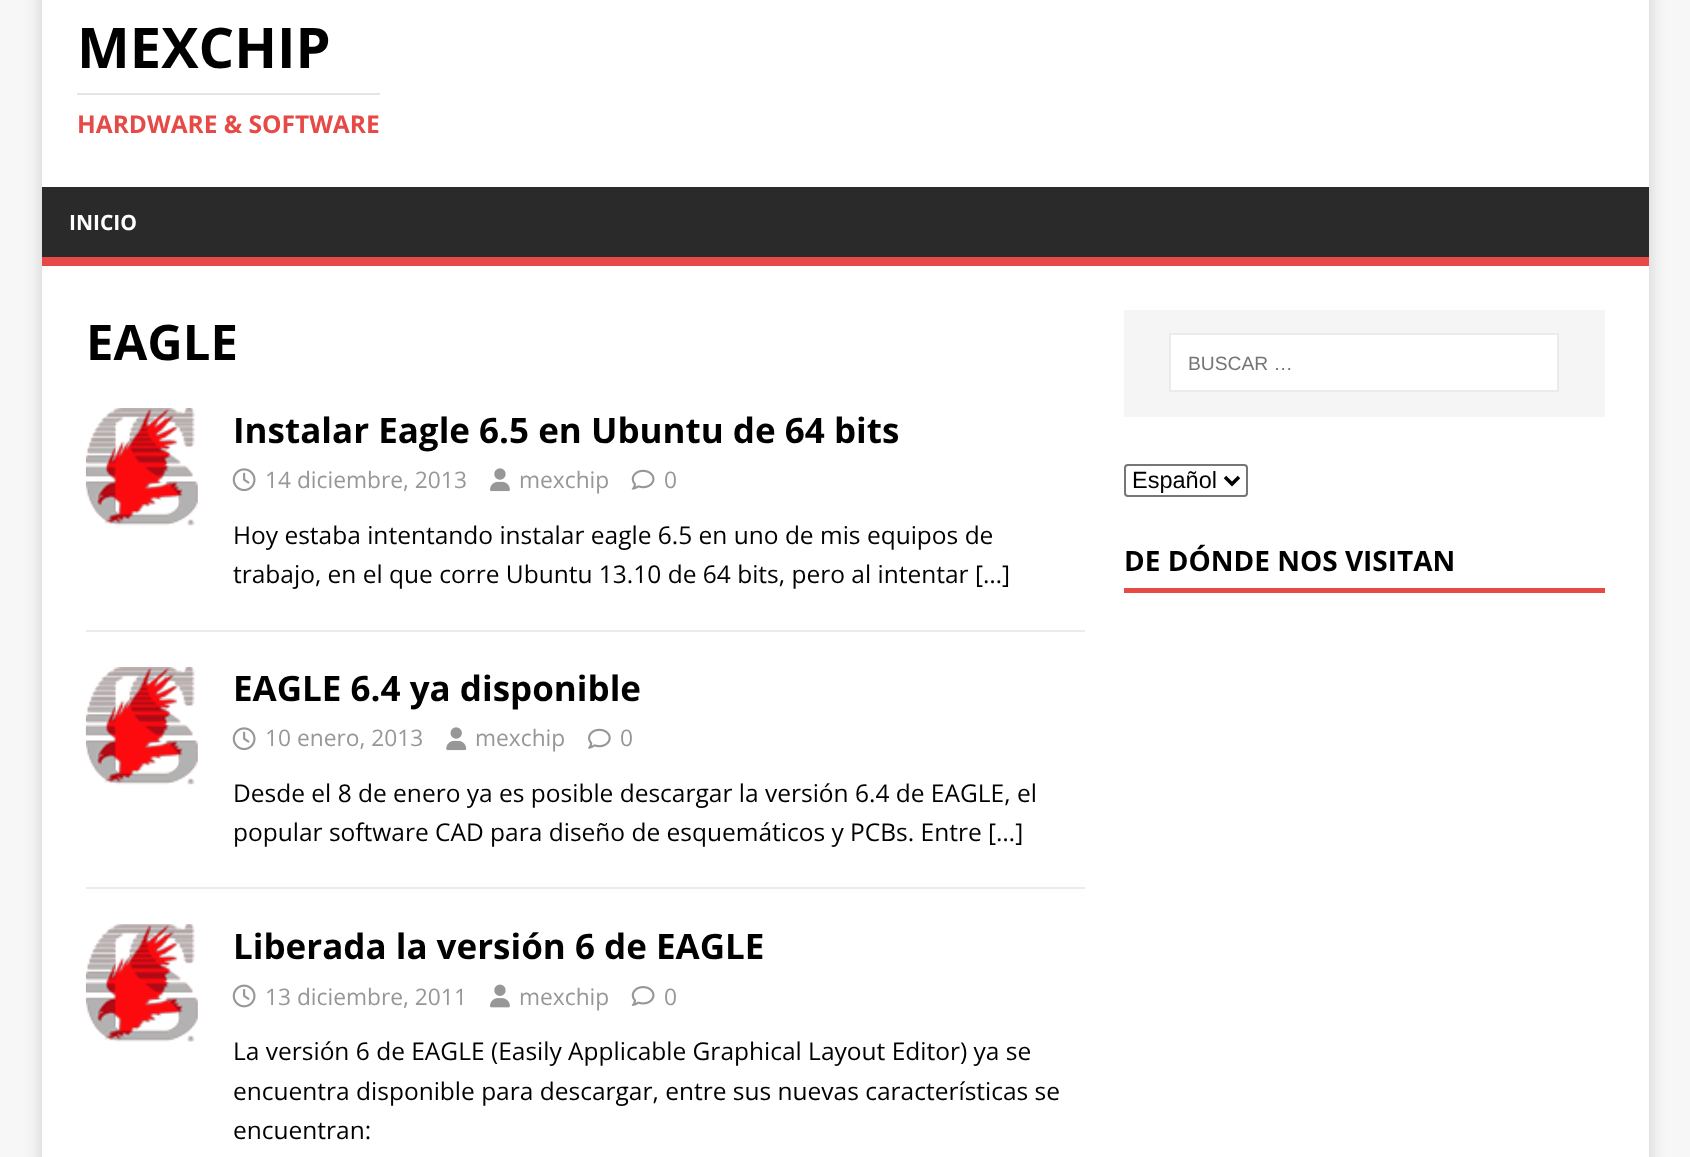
<svg xmlns="http://www.w3.org/2000/svg" width="1690" height="1157" viewBox="0 0 1690 1157">
  <defs>
    <filter id="blur1" x="-50%" y="-200%" width="200%" height="500%"><feGaussianBlur stdDeviation="9"/></filter>
  </defs>
  <rect width="100%" height="100%" fill="#f7f7f7"/>
  <rect x="42" y="-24" width="1607" height="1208" fill="#323232" fill-opacity="0.17" filter="url(#blur1)"/>
  <rect x="42" y="0" width="1607" height="187" fill="#ffffff"/>
  <text x="77" y="68" font-family="Open Sans" font-size="56" font-weight="bold" fill="#000000">MEXCHIP</text>
  <rect x="77" y="93" width="303" height="2" fill="#e5e5e5"/>
  <text x="77" y="133" font-family="Open Sans" font-size="24.5" font-weight="bold" fill="#e64946">HARDWARE &amp; SOFTWARE</text>
  <rect x="42" y="187" width="1607" height="70" fill="#2a2a2a"/>
  <rect x="42" y="257" width="1607" height="9" fill="#e64946"/>
  <text x="69" y="230" font-family="Open Sans" font-size="21" font-weight="bold" fill="#ffffff">INICIO</text>
  <rect x="42" y="266" width="1607" height="891" fill="#ffffff"/>
  <text x="86" y="360" font-family="Open Sans" font-size="49" font-weight="bold" fill="#000000">EAGLE</text>
  <rect x="86" y="630" width="999" height="2" fill="#ebebeb"/>
  <image x="85" y="408" width="113" height="118" href="img1.png"/>
  <text x="233" y="443" font-family="Open Sans" font-size="35" font-weight="bold" fill="#000000">Instalar Eagle 6.5 en Ubuntu de 64 bits</text>
  <image x="232" y="468" width="24" height="24" href="img2.png"/>
  <text x="265" y="488" font-family="Open Sans" font-size="22.75" fill="#979797">14 diciembre, 2013</text>
  <image x="490" y="468" width="20" height="24" href="img3.png"/>
  <text x="519" y="488" font-family="Open Sans" font-size="22.75" fill="#979797">mexchip</text>
  <image x="631" y="469" width="24" height="21" href="img4.png"/>
  <text x="664" y="488" font-family="Open Sans" font-size="22.75" fill="#979797">0</text>
  <text x="233" y="544" font-family="Open Sans" font-size="24.5" fill="#000000">Hoy estaba intentando instalar eagle 6.5 en uno de mis equipos de</text>
  <text x="233" y="583" font-family="Open Sans" font-size="24.5" fill="#000000">trabajo, en el que corre Ubuntu 13.10 de 64 bits, pero al intentar […]</text>
  <rect x="86" y="887" width="999" height="2" fill="#ebebeb"/>
  <image x="85" y="667" width="113" height="118" href="img1.png"/>
  <text x="233" y="701" font-family="Open Sans" font-size="35" font-weight="bold" fill="#000000">EAGLE 6.4 ya disponible</text>
  <image x="232" y="727" width="24" height="24" href="img2.png"/>
  <text x="265" y="746" font-family="Open Sans" font-size="22.75" fill="#979797">10 enero, 2013</text>
  <image x="446" y="727" width="21" height="24" href="img5.png"/>
  <text x="475" y="746" font-family="Open Sans" font-size="22.75" fill="#979797">mexchip</text>
  <image x="588" y="728" width="23" height="21" href="img6.png"/>
  <text x="620" y="746" font-family="Open Sans" font-size="22.75" fill="#979797">0</text>
  <text x="233" y="802" font-family="Open Sans" font-size="24.5" fill="#000000">Desde el 8 de enero ya es posible descargar la versión 6.4 de EAGLE, el</text>
  <text x="233" y="841" font-family="Open Sans" font-size="24.5" fill="#000000">popular software CAD para diseño de esquemáticos y PCBs. Entre […]</text>
  <image x="85" y="924" width="113" height="118" href="img7.png"/>
  <text x="233" y="959" font-family="Open Sans" font-size="35" font-weight="bold" fill="#000000">Liberada la versión 6 de EAGLE</text>
  <image x="232" y="984" width="24" height="24" href="img8.png"/>
  <text x="265" y="1005" font-family="Open Sans" font-size="22.75" fill="#979797">13 diciembre, 2011</text>
  <image x="490" y="984" width="20" height="24" href="img9.png"/>
  <text x="519" y="1005" font-family="Open Sans" font-size="22.75" fill="#979797">mexchip</text>
  <image x="631" y="986" width="24" height="20" href="img10.png"/>
  <text x="664" y="1005" font-family="Open Sans" font-size="22.75" fill="#979797">0</text>
  <text x="233" y="1060" font-family="Open Sans" font-size="24.5" fill="#000000">La versión 6 de EAGLE (Easily Applicable Graphical Layout Editor) ya se</text>
  <text x="233" y="1100" font-family="Open Sans" font-size="24.5" fill="#000000">encuentra disponible para descargar, entre sus nuevas características se</text>
  <text x="233" y="1139" font-family="Open Sans" font-size="24.5" fill="#000000">encuentran:</text>
  <rect x="1124" y="310" width="481" height="107" fill="#f5f5f5"/>
  <rect x="1170" y="334" width="388" height="57" fill="#ffffff" stroke="#ebebeb" stroke-width="2"/>
  <text x="1188" y="370" font-family="Liberation Sans" font-size="19.25" fill="#757575">BUSCAR …</text>
  <rect x="1125" y="465" width="122" height="31" rx="3" fill="none" stroke="#767676" stroke-width="2"/>
  <path d="M1225 477L1232 484L1239 477" fill="none" stroke="#000000" stroke-width="3.5"/>
  <text x="1132" y="488" font-family="Liberation Sans" font-size="23.5" fill="#000000">Español</text>
  <rect x="1124" y="588" width="481" height="5" fill="#e64946"/>
  <text x="1124" y="571" font-family="Open Sans" font-size="28" font-weight="bold" fill="#000000">DE DÓNDE NOS VISITAN</text>
</svg>
